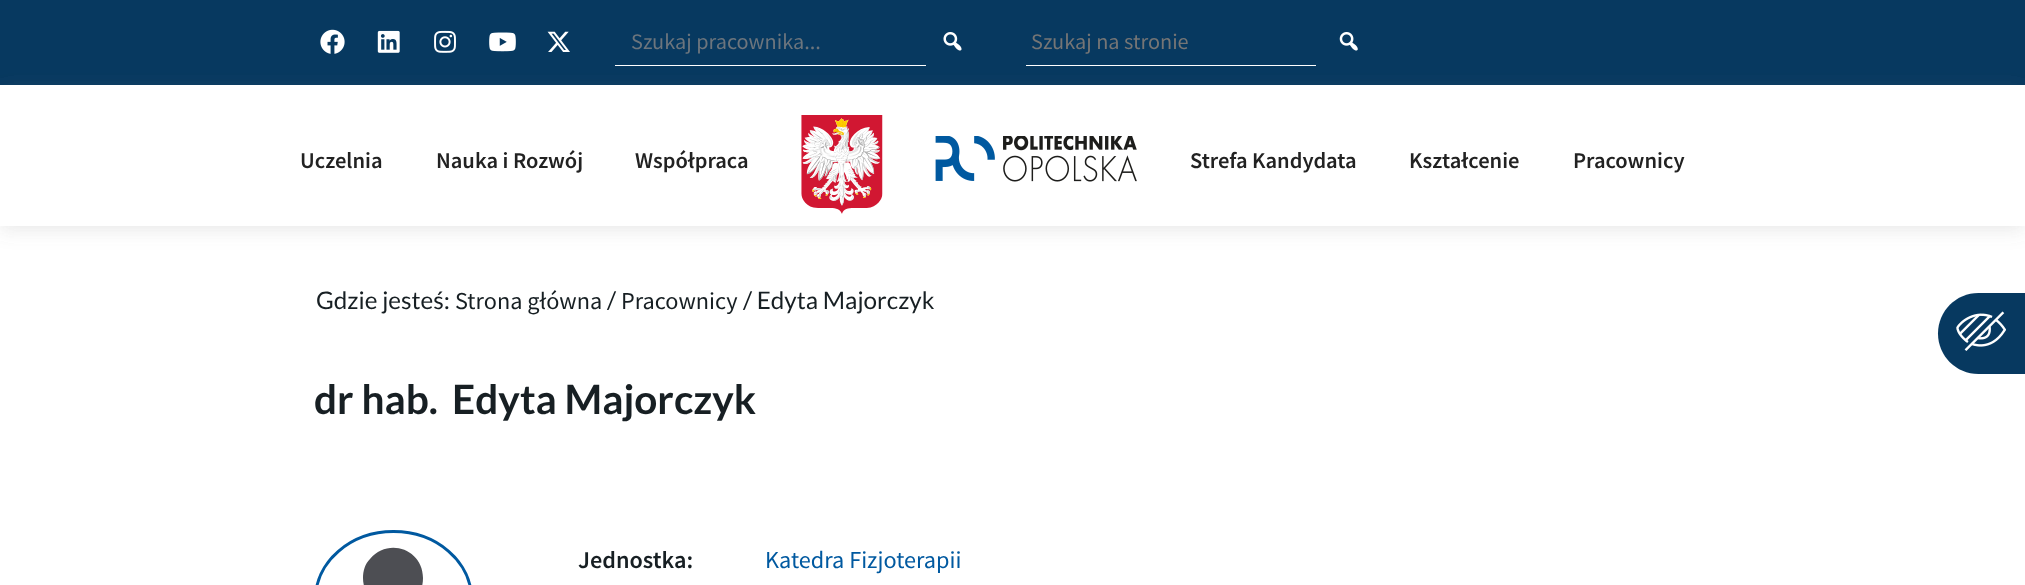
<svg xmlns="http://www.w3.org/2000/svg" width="2025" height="585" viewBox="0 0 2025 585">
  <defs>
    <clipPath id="clip1"><path d="M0 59H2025V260H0ZM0 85H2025V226H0Z" clip-rule="evenodd"/></clipPath>
    <filter id="blur1" x="-50%" y="-200%" width="200%" height="500%"><feGaussianBlur stdDeviation="9.5"/></filter>
  </defs>
  <rect width="100%" height="100%" fill="#ffffff"/>
  <rect x="0" y="0" width="2025" height="85" fill="#073960"/>
  <image x="320" y="29" width="25" height="25" href="img1.png"/>
  <image x="377" y="30" width="23" height="23" href="img2.png"/>
  <image x="434" y="30" width="22" height="23" href="img3.png"/>
  <image x="489" y="32" width="27" height="20" href="img4.png"/>
  <image x="547" y="31" width="23" height="21" href="img5.png"/>
  <rect x="615" y="65" width="311" height="1" fill="#ffffff"/>
  <text x="631" y="49" font-family="Source Sans Pro" font-size="22.25" fill="#6c757d">Szukaj pracownika...</text>
  <image x="943" y="32" width="19" height="19" href="img6.png"/>
  <rect x="1026" y="65" width="290" height="1" fill="#ffffff"/>
  <text x="1031" y="49" font-family="Source Sans Pro" font-size="22.25" fill="#757575">Szukaj na stronie</text>
  <image x="1339" y="32" width="19" height="19" href="img7.png"/>
  <g clip-path="url(#clip1)">
    <rect x="0" y="89" width="2025" height="141" fill="#717171" fill-opacity="0.16" filter="url(#blur1)"/>
  </g>
  <text x="300" y="168" font-family="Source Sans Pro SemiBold" font-size="22.5" font-weight="600" fill="#222222">Uczelnia</text>
  <text x="436" y="168" font-family="Source Sans Pro SemiBold" font-size="22.5" font-weight="600" fill="#222222">Nauka i Rozwój</text>
  <text x="635" y="168" font-family="Source Sans Pro SemiBold" font-size="22.5" font-weight="600" fill="#222222">Współpraca</text>
  <image x="801" y="115" width="82" height="99" href="img8.png"/>
  <image x="935" y="136" width="202" height="46" href="img9.png"/>
  <text x="1190" y="168" font-family="Source Sans Pro SemiBold" font-size="22.5" font-weight="600" fill="#222222">Strefa Kandydata</text>
  <text x="1409" y="168" font-family="Source Sans Pro SemiBold" font-size="22.5" font-weight="600" fill="#222222">Kształcenie</text>
  <text x="1573" y="168" font-family="Source Sans Pro SemiBold" font-size="22.5" font-weight="600" fill="#222222">Pracownicy</text>
  <text x="316" y="309" font-family="Lato" font-size="24.25" fill="#171f23">Gdzie jesteś:</text>
  <text x="455" y="309" font-family="Source Sans Pro" font-size="24.25" fill="#171f23">Strona główna</text>
  <text x="607" y="309" font-family="Lato" font-size="24.25" fill="#171f23">/</text>
  <text x="621" y="309" font-family="Source Sans Pro" font-size="24.25" fill="#171f23">Pracownicy</text>
  <text x="743" y="309" font-family="Lato" font-size="24.25" fill="#171f23">/ Edyta Majorczyk</text>
  <text x="314" y="414" font-family="Lato" font-size="40.5" font-weight="bold" fill="#171f23">dr hab.</text>
  <text x="452" y="414" font-family="Lato" font-size="40.5" font-weight="bold" fill="#171f23">Edyta Majorczyk</text>
  <rect x="315.5" y="531.5" width="156" height="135" rx="78" fill="none" stroke="#0059a0" stroke-width="3"/>
  <path d="M444 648C444 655 439 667 430 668L381 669C375 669 362 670 356 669C350 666 345 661 344 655C341 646 344 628 346 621C348 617 349 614 352 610C356 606 362 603 368 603C382 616 404 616 418 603C440 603 444 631 444 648ZM423 578C423 549 388 537 370 559C365 564 363 571 363 578C363 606 399 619 417 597C421 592 423 585 423 578Z" fill="#4d4e53" fill-rule="evenodd"/>
  <text x="578" y="568" font-family="Source Sans Pro SemiBold" font-size="24.25" font-weight="600" fill="#171f23">Jednostka:</text>
  <text x="765" y="568" font-family="Source Sans Pro" font-size="24.25" fill="#0059a0">Katedra Fizjoterapii</text>
  <path d="M1978.5 293H2025V374H1978.5C1956 374 1938 356 1938 333.5C1938 311 1956 293 1978.5 293Z" fill="#073960"/>
  <image x="1956" y="311" width="50" height="40" href="img10.png"/>
</svg>
